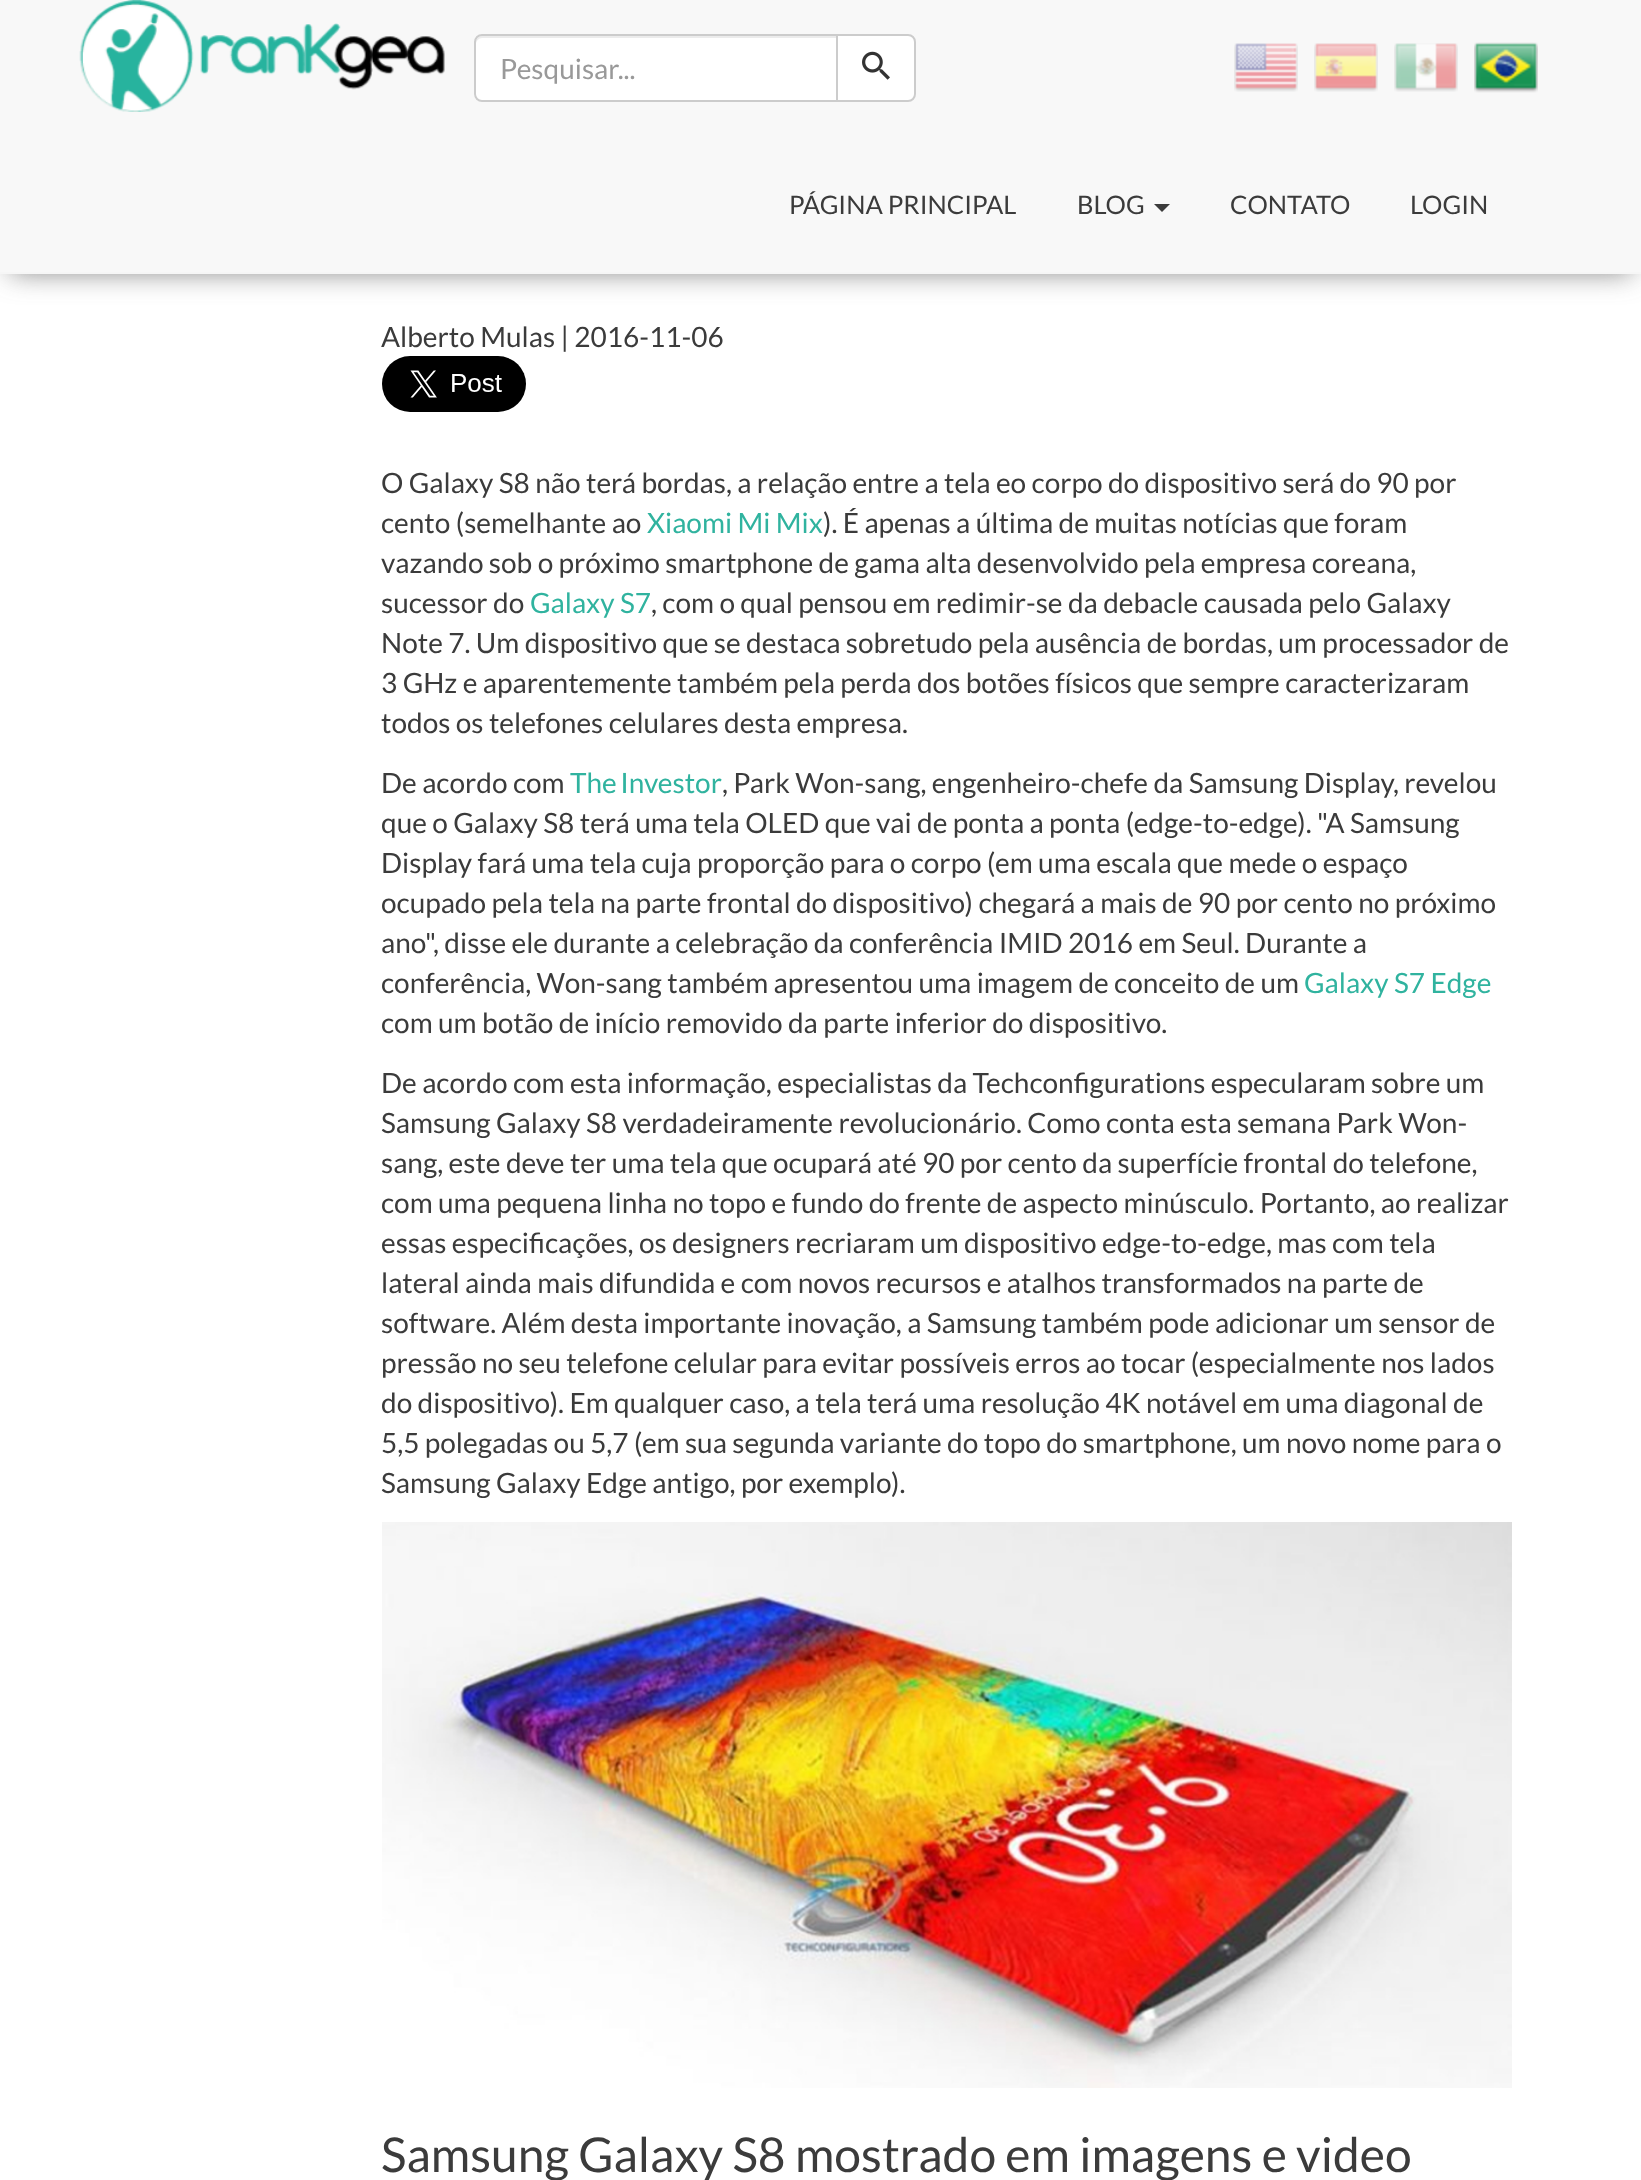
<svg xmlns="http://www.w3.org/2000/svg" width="1641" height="2180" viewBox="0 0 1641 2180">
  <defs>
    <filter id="blur1" x="-50%" y="-200%" width="200%" height="500%"><feGaussianBlur stdDeviation="14"/></filter>
  </defs>
  <rect width="100%" height="100%" fill="#ffffff"/>
  <rect x="10" y="18" width="1622" height="254" fill="#7f7f7f" filter="url(#blur1)"/>
  <rect x="0" y="0" width="1641" height="272" fill="#f8f8f8"/>
  <rect x="0" y="272" width="1641" height="2" fill="#f6f6f6"/>
  <image x="79" y="0" width="366" height="112" href="img1.png"/>
  <path d="M482 34H838V102H482C477.5 102 474 98.5 474 94V42C474 37.5 477.5 34 482 34Z" fill="#ffffff"/>
  <path d="M482 38H836V36H482C479 36 476 39 476 42V44C476 41 479 38 482 38Z" fill="#ececec"/>
  <path d="M482 35H837V101H482C478 101 475 98 475 94V42C475 38 478 35 482 35Z" fill="none" stroke="#cccccc" stroke-width="2"/>
  <text x="500" y="79" font-family="Lato" font-size="28" fill="#999999">Pesquisar...</text>
  <path d="M837 35H908C912 35 915 38 915 42V94C915 98 912 101 908 101H837Z" fill="#ffffff" stroke="#cccccc" stroke-width="2"/>
  <image x="862" y="51" width="28" height="29" href="img2.png"/>
  <image x="1234" y="43" width="64" height="49" href="img3.png"/>
  <image x="1314" y="43" width="64" height="49" href="img4.png"/>
  <image x="1394" y="43" width="64" height="49" href="img5.png"/>
  <image x="1474" y="42" width="64" height="51" href="img6.png"/>
  <text x="789" y="214" font-family="Lato" font-size="25.5" fill="#3b3b3b">PÁGINA PRINCIPAL</text>
  <text x="1077" y="214" font-family="Lato" font-size="25.5" fill="#3b3b3b">BLOG</text>
  <path d="M1154 204H1170L1162 212Z" fill="#3b3b3b"/>
  <text x="1230" y="214" font-family="Lato" font-size="25.5" fill="#3b3b3b">CONTATO</text>
  <text x="1410" y="214" font-family="Lato" font-size="25.5" fill="#3b3b3b">LOGIN</text>
  <text x="381" y="347" font-family="Lato" font-size="28" fill="#3b3b3b">Alberto Mulas | 2016-11-06</text>
  <image x="382" y="356" width="144" height="56" href="img7.png"/>
  <text x="381" y="493" font-family="Lato" font-size="28" fill="#3b3b3b">O Galaxy S8 não terá bordas, a relação entre a tela eo corpo do dispositivo será do 90 por</text>
  <text x="381" y="533" font-family="Lato" font-size="28" fill="#3b3b3b">cento (semelhante ao</text>
  <text x="647" y="533" font-family="Lato" font-size="28" fill="#30b39f">Xiaomi Mi Mix</text>
  <text x="823" y="533" font-family="Lato" font-size="28" fill="#3b3b3b">). É apenas a última de muitas notícias que foram</text>
  <text x="381" y="573" font-family="Lato" font-size="28" fill="#3b3b3b">vazando sob o próximo smartphone de gama alta desenvolvido pela empresa coreana,</text>
  <text x="381" y="613" font-family="Lato" font-size="28" fill="#3b3b3b">sucessor do</text>
  <text x="530" y="613" font-family="Lato" font-size="28" fill="#30b39f">Galaxy S7</text>
  <text x="651" y="613" font-family="Lato" font-size="28" fill="#3b3b3b">, com o qual pensou em redimir-se da debacle causada pelo Galaxy</text>
  <text x="381" y="653" font-family="Lato" font-size="28" fill="#3b3b3b">Note 7. Um dispositivo que se destaca sobretudo pela ausência de bordas, um processador de</text>
  <text x="381" y="693" font-family="Lato" font-size="28" fill="#3b3b3b">3 GHz e aparentemente também pela perda dos botões físicos que sempre caracterizaram</text>
  <text x="381" y="733" font-family="Lato" font-size="28" fill="#3b3b3b">todos os telefones celulares desta empresa.</text>
  <text x="381" y="793" font-family="Lato" font-size="28" fill="#3b3b3b">De acordo com</text>
  <text x="570" y="793" word-spacing="-2" font-family="Lato" font-size="28" fill="#30b39f">The Investor</text>
  <text x="722" y="793" font-family="Lato" font-size="28" fill="#3b3b3b">, Park Won-sang, engenheiro-chefe da Samsung Display, revelou</text>
  <text x="381" y="833" font-family="Lato" font-size="28" fill="#3b3b3b">que o Galaxy S8 terá uma tela OLED que vai de ponta a ponta (edge-to-edge). "A Samsung</text>
  <text x="381" y="873" font-family="Lato" font-size="28" fill="#3b3b3b">Display fará uma tela cuja proporção para o corpo (em uma escala que mede o espaço</text>
  <text x="381" y="913" font-family="Lato" font-size="28" fill="#3b3b3b">ocupado pela tela na parte frontal do dispositivo) chegará a mais de 90 por cento no próximo</text>
  <text x="381" y="953" font-family="Lato" font-size="28" fill="#3b3b3b">ano", disse ele durante a celebração da conferência IMID 2016 em Seul. Durante a</text>
  <text x="381" y="993" font-family="Lato" font-size="28" fill="#3b3b3b">conferência, Won-sang também apresentou uma imagem de conceito de um</text>
  <text x="1304" y="993" font-family="Lato" font-size="28" fill="#30b39f">Galaxy S7 Edge</text>
  <text x="381" y="1033" font-family="Lato" font-size="28" fill="#3b3b3b">com um botão de início removido da parte inferior do dispositivo.</text>
  <text x="381" y="1093" font-family="Lato" font-size="28" fill="#3b3b3b">De acordo com esta informação, especialistas da Techconfigurations especularam sobre um</text>
  <text x="381" y="1133" font-family="Lato" font-size="28" fill="#3b3b3b">Samsung Galaxy S8 verdadeiramente revolucionário. Como conta esta semana Park Won-</text>
  <text x="381" y="1173" font-family="Lato" font-size="28" fill="#3b3b3b">sang, este deve ter uma tela que ocupará até 90 por cento da superfície frontal do telefone,</text>
  <text x="381" y="1213" font-family="Lato" font-size="28" fill="#3b3b3b">com uma pequena linha no topo e fundo do frente de aspecto minúsculo. Portanto, ao realizar</text>
  <text x="381" y="1253" font-family="Lato" font-size="28" fill="#3b3b3b">essas especificações, os designers recriaram um dispositivo edge-to-edge, mas com tela</text>
  <text x="381" y="1293" font-family="Lato" font-size="28" fill="#3b3b3b">lateral ainda mais difundida e com novos recursos e atalhos transformados na parte de</text>
  <text x="381" y="1333" font-family="Lato" font-size="28" fill="#3b3b3b">software. Além desta importante inovação, a Samsung também pode adicionar um sensor de</text>
  <text x="381" y="1373" font-family="Lato" font-size="28" fill="#3b3b3b">pressão no seu telefone celular para evitar possíveis erros ao tocar (especialmente nos lados</text>
  <text x="381" y="1413" font-family="Lato" font-size="28" fill="#3b3b3b">do dispositivo). Em qualquer caso, a tela terá uma resolução 4K notável em uma diagonal de</text>
  <text x="381" y="1453" font-family="Lato" font-size="28" fill="#3b3b3b">5,5 polegadas ou 5,7 (em sua segunda variante do topo do smartphone, um novo nome para o</text>
  <text x="381" y="1493" font-family="Lato" font-size="28" fill="#3b3b3b">Samsung Galaxy Edge antigo, por exemplo).</text>
  <image x="382" y="1522" width="1130" height="566" href="img8.png"/>
  <text x="381" y="2172" font-family="Lato" font-size="48" fill="#3b3b3b">Samsung Galaxy S8 mostrado em imagens e video</text>
</svg>
